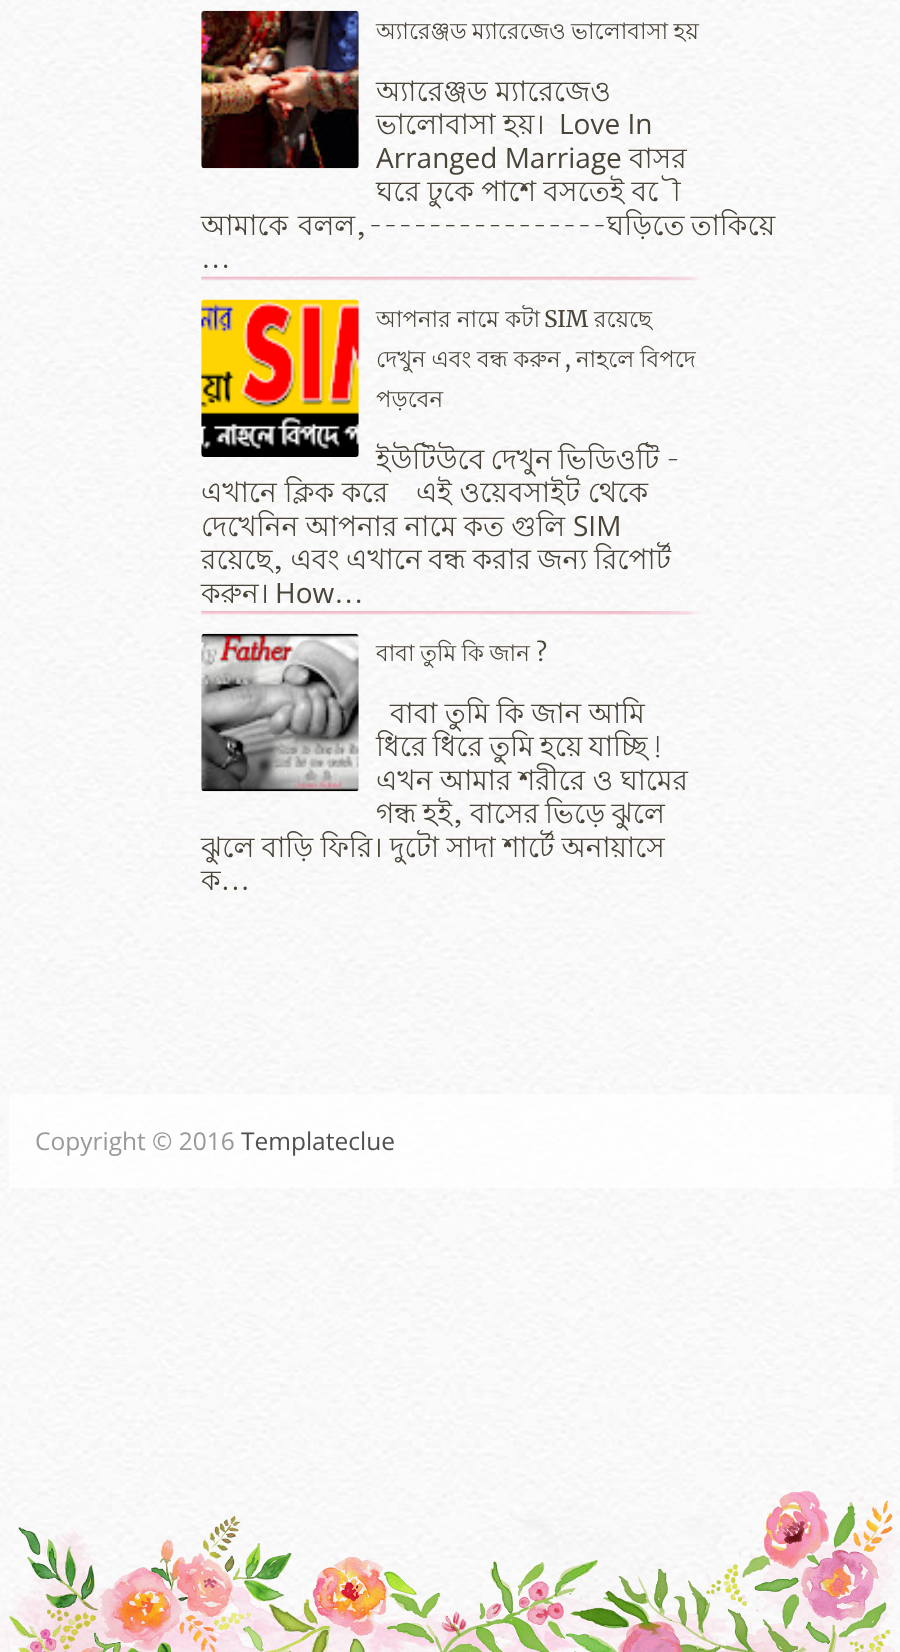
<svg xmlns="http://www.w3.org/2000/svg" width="900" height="1652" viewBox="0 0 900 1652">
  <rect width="100%" height="100%" fill="#ffffff"/>
  <image x="0" y="0" width="900" height="1652" href="img1.png"/>
  <image x="0" y="1489" width="900" height="163" href="img2.png"/>
  <image x="201" y="10" width="158" height="159" href="img3.png"/>
  <text x="376" y="39" word-spacing="-1" font-family="Lohit Bengali" font-size="22.75" fill="#4a4439">অ্যারেঞ্জড ম্যারেজেও ভালোবাসা হয়</text>
  <text x="376" y="101" font-family="Lohit Bengali" font-size="28" fill="#4a4439">অ্যারেঞ্জড ম্যারেজেও</text>
  <text x="376" y="134" font-family="Lohit Bengali" font-size="28" fill="#4a4439">ভালোবাসা হয়।</text>
  <text x="559" y="134" font-family="Open Sans" font-size="28" fill="#4a4439">Love In</text>
  <text x="376" y="168" font-family="Open Sans" font-size="28" fill="#4a4439">Arranged Marriage</text>
  <text x="629" y="168" font-family="Lohit Bengali" font-size="28" fill="#4a4439">বাসর</text>
  <text x="376" y="201" word-spacing="-0.5" font-family="Lohit Bengali" font-size="28" fill="#4a4439">ঘরে ঢুকে পাশে বসতেই বৌ</text>
  <text x="201" y="235" word-spacing="2" font-family="Lohit Bengali" font-size="28" fill="#4a4439">আমাকে বলল,</text>
  <text x="368" y="235" word-spacing="-1.5" font-family="Lohit Bengali" font-size="28" fill="#4a4439">----------------ঘড়িতে তাকিয়ে</text>
  <text x="201" y="268" font-family="Lohit Bengali" font-size="28" fill="#4a4439">...</text>
  <image x="201" y="276" width="499" height="5" href="img4.png"/>
  <image x="201" y="299" width="158" height="158" href="img5.png"/>
  <text x="376" y="327" font-family="Lohit Bengali" font-size="22.75" fill="#4a4439">আপনার নামে কটা</text>
  <text x="544" y="327" font-family="Merriweather" font-size="22.75" fill="#4a4439">SIM</text>
  <text x="594" y="327" font-family="Lohit Bengali" font-size="22.75" fill="#4a4439">রয়েছে</text>
  <text x="376" y="367" word-spacing="-0.5" font-family="Lohit Bengali" font-size="22.75" fill="#4a4439">দেখুন এবং বন্ধ করুন</text>
  <text x="565" y="367" font-family="Merriweather" font-size="22.75" fill="#4a4439">,</text>
  <text x="576" y="367" word-spacing="-0.5" font-family="Lohit Bengali" font-size="22.75" fill="#4a4439">নাহলে বিপদে</text>
  <text x="376" y="407" font-family="Lohit Bengali" font-size="22.75" fill="#4a4439">পড়বেন</text>
  <text x="376" y="469" word-spacing="-1.5" font-family="Lohit Bengali" font-size="28" fill="#4a4439">ইউটিউবে দেখুন ভিডিওটি -</text>
  <text x="201" y="502" font-family="Lohit Bengali" font-size="28" fill="#4a4439">এখানে ক্লিক করে</text>
  <text x="416" y="502" font-family="Lohit Bengali" font-size="28" fill="#4a4439">এই ওয়েবসাইট থেকে</text>
  <text x="201" y="536" word-spacing="-0.5" font-family="Lohit Bengali" font-size="28" fill="#4a4439">দেখেনিন আপনার নামে কত গুলি</text>
  <text x="573" y="536" font-family="Open Sans" font-size="28" fill="#4a4439">SIM</text>
  <text x="201" y="569" word-spacing="-1.25" font-family="Lohit Bengali" font-size="28" fill="#4a4439">রয়েছে, এবং এখানে বন্ধ করার জন্য রিপোর্ট</text>
  <text x="201" y="603" font-family="Lohit Bengali" font-size="28" fill="#4a4439">করুন।</text>
  <text x="275" y="603" font-family="Open Sans" font-size="28" fill="#4a4439">How</text>
  <text x="334" y="603" font-family="Lohit Bengali" font-size="28" fill="#4a4439">...</text>
  <image x="201" y="611" width="499" height="4" href="img6.png"/>
  <image x="201" y="633" width="158" height="159" href="img7.png"/>
  <text x="376" y="661" font-family="Lohit Bengali" font-size="22.75" fill="#4a4439">বাবা</text>
  <text x="420" y="661" word-spacing="-1" font-family="Lohit Bengali" font-size="22.75" fill="#4a4439">তুমি কি জান</text>
  <text x="536" y="661" font-family="Merriweather" font-size="22.75" fill="#4a4439">?</text>
  <text x="390" y="723" word-spacing="-0.5" font-family="Lohit Bengali" font-size="28" fill="#4a4439">বাবা তুমি কি জান আমি</text>
  <text x="376" y="756" word-spacing="-1.5" font-family="Lohit Bengali" font-size="28" fill="#4a4439">ধিরে ধিরে তুমি হয়ে যাচ্ছি!</text>
  <text x="376" y="790" word-spacing="-0.5" font-family="Lohit Bengali" font-size="28" fill="#4a4439">এখন আমার শরীরে ও ঘামের</text>
  <text x="376" y="823" word-spacing="-1.5" font-family="Lohit Bengali" font-size="28" fill="#4a4439">গন্ধ হই, বাসের ভিড়ে ঝুলে</text>
  <text x="201" y="857" word-spacing="-0.5" font-family="Lohit Bengali" font-size="28" fill="#4a4439">ঝুলে বাড়ি ফিরি। দুটো সাদা শার্টে অনায়াসে</text>
  <text x="201" y="890" font-family="Lohit Bengali" font-size="28" fill="#4a4439">ক...</text>
  <rect x="9" y="1094" width="884" height="94" fill="#ffffff" fill-opacity="0.7"/>
  <text x="35" y="1150" font-family="Open Sans" font-size="24.5" fill="#999999">Copyright © 2016</text>
  <text x="241" y="1150" font-family="Open Sans" font-size="24.5" fill="#504e4e">Templateclue</text>
</svg>
